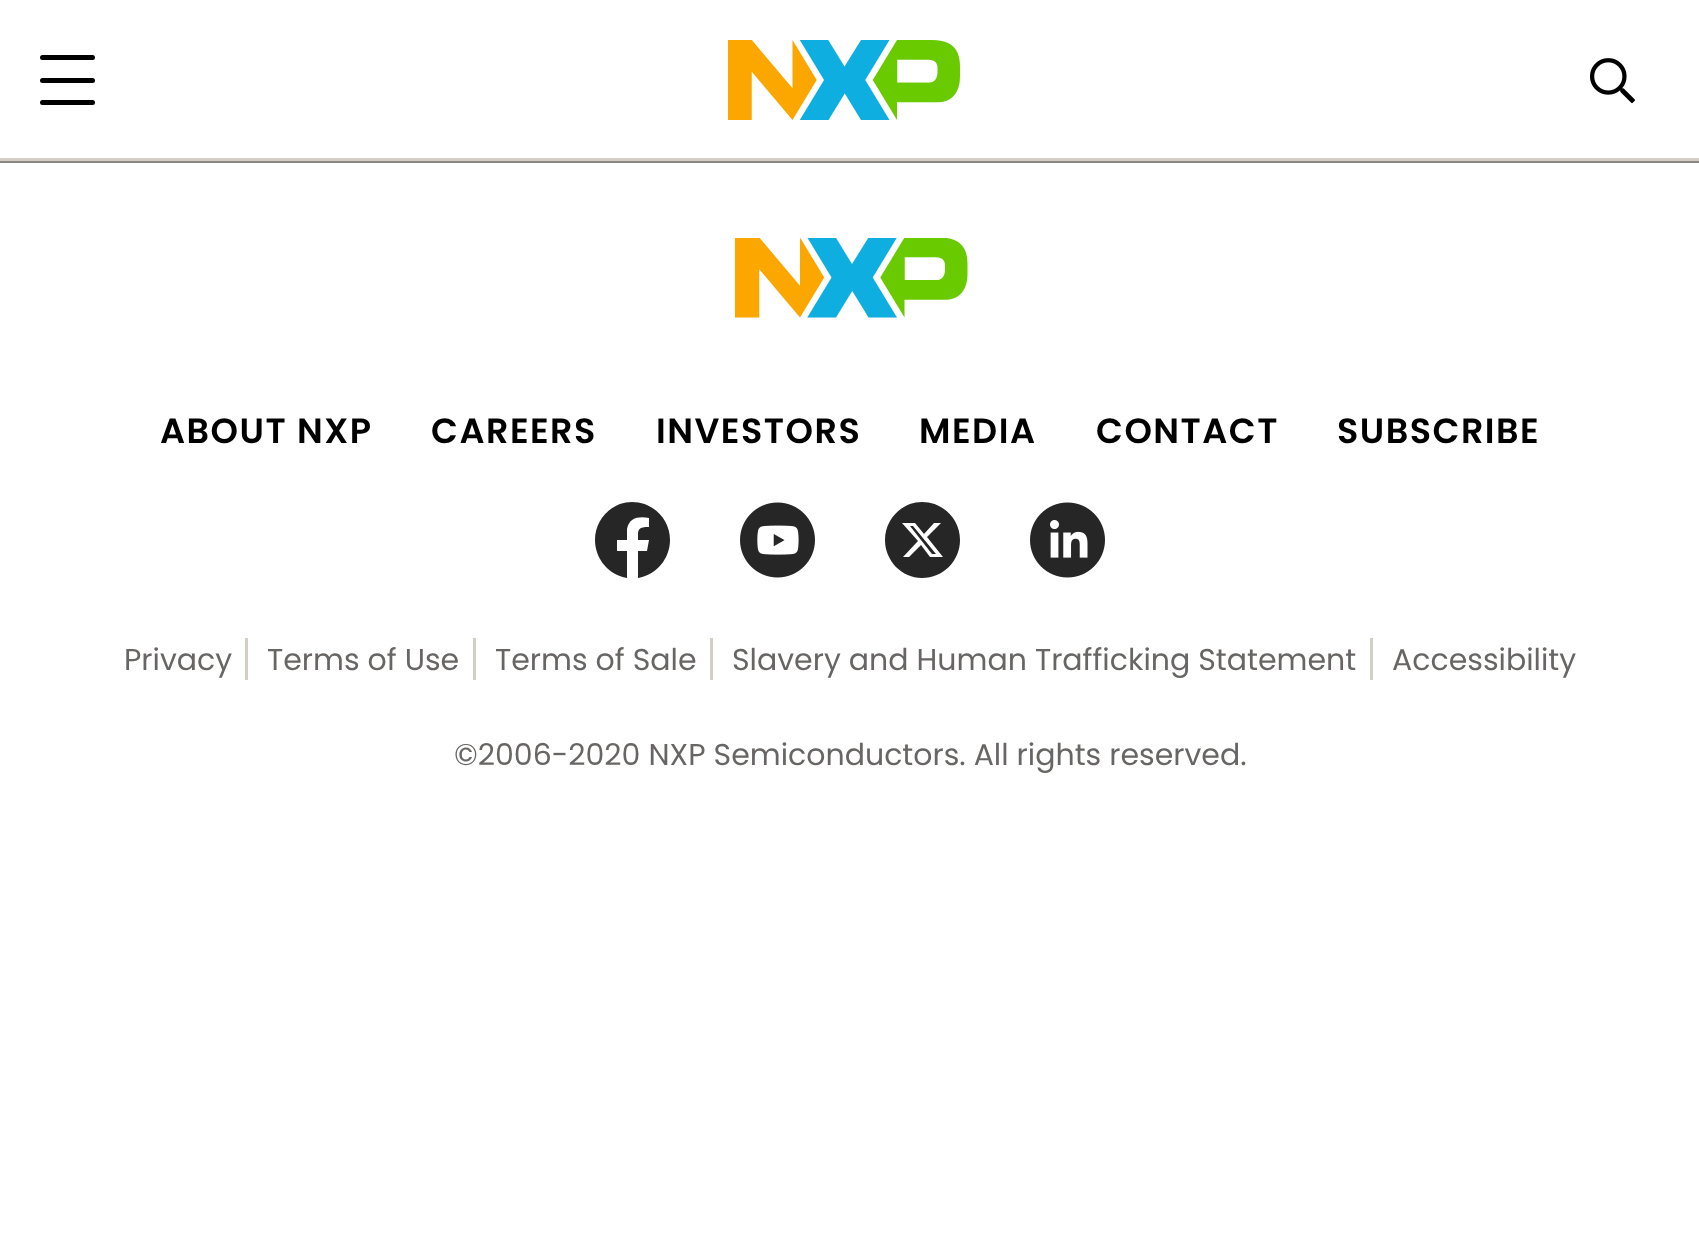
<svg xmlns="http://www.w3.org/2000/svg" width="1699" height="1260" viewBox="0 0 1699 1260">
  <rect width="100%" height="100%" fill="#ffffff"/>
  <rect x="0" y="158" width="1699" height="3" fill="#d4cfc5"/>
  <rect x="40" y="55" width="55" height="5" rx="2.5" fill="#000000"/>
  <rect x="40" y="78" width="55" height="5" rx="2.5" fill="#000000"/>
  <rect x="40" y="100" width="55" height="5" rx="2.5" fill="#000000"/>
  <image x="728" y="40" width="232" height="80" href="img1.png"/>
  <image x="1590" y="58" width="45" height="46" href="img2.png"/>
  <rect x="0" y="161" width="1699" height="2" fill="#898683"/>
  <image x="735" y="238" width="233" height="80" href="img3.png"/>
  <text x="160" y="443" font-family="Poppins" font-size="35" font-weight="600" letter-spacing="1.5" fill="#000000">ABOUT NXP</text>
  <text x="431" y="443" font-family="Poppins" font-size="35" font-weight="600" letter-spacing="1.5" fill="#000000">CAREERS</text>
  <text x="656" y="443" font-family="Poppins" font-size="35" font-weight="600" letter-spacing="1.5" fill="#000000">INVESTORS</text>
  <text x="919" y="443" font-family="Poppins" font-size="35" font-weight="600" letter-spacing="1.5" fill="#000000">MEDIA</text>
  <text x="1096" y="443" font-family="Poppins" font-size="35" font-weight="600" letter-spacing="1.5" fill="#000000">CONTACT</text>
  <text x="1337" y="443" font-family="Poppins" font-size="35" font-weight="600" letter-spacing="1.5" fill="#000000">SUBSCRIBE</text>
  <path d="M670 540C670 519 653 502 632 502C612 502 595 519 595 540C595 559 609 575 627 578V551H617V540H627V529C629 517 640 516 649 518V527C637 527 638 530 638 540H649L647 551H638V578C656 575 670 559 670 540Z" fill="#262626"/>
  <image x="740" y="502" width="75" height="76" href="img4.png"/>
  <path d="M922 578C943 578 960 561 960 540C960 519 943 502 922 502C902 502 885 519 885 540C885 561 902 578 922 578ZM941 523H934L924 534L915 523H902L918 541L903 557H909L921 545L930 557H943L927 537ZM936 554H932L910 526H913Z" fill="#262626" fill-rule="evenodd"/>
  <image x="1030" y="502" width="75" height="76" href="img5.png"/>
  <rect x="245" y="638" width="3" height="42" fill="#d4cfc5"/>
  <text x="124" y="670" font-family="Poppins" font-size="30" fill="#686664">Privacy</text>
  <rect x="473" y="638" width="3" height="42" fill="#d4cfc5"/>
  <text x="267" y="670" font-family="Poppins" font-size="30" fill="#686664">Terms of Use</text>
  <rect x="710" y="638" width="3" height="42" fill="#d4cfc5"/>
  <text x="495" y="670" font-family="Poppins" font-size="30" fill="#686664">Terms of Sale</text>
  <rect x="1370" y="638" width="3" height="42" fill="#d4cfc5"/>
  <text x="732" y="670" font-family="Poppins" font-size="30" fill="#686664">Slavery and Human Trafficking Statement</text>
  <text x="1392" y="670" font-family="Poppins" font-size="30" fill="#686664">Accessibility</text>
  <text x="454" y="765" font-family="Poppins" font-size="30" fill="#686664">©2006-2020 NXP Semiconductors. All rights reserved.</text>
</svg>
